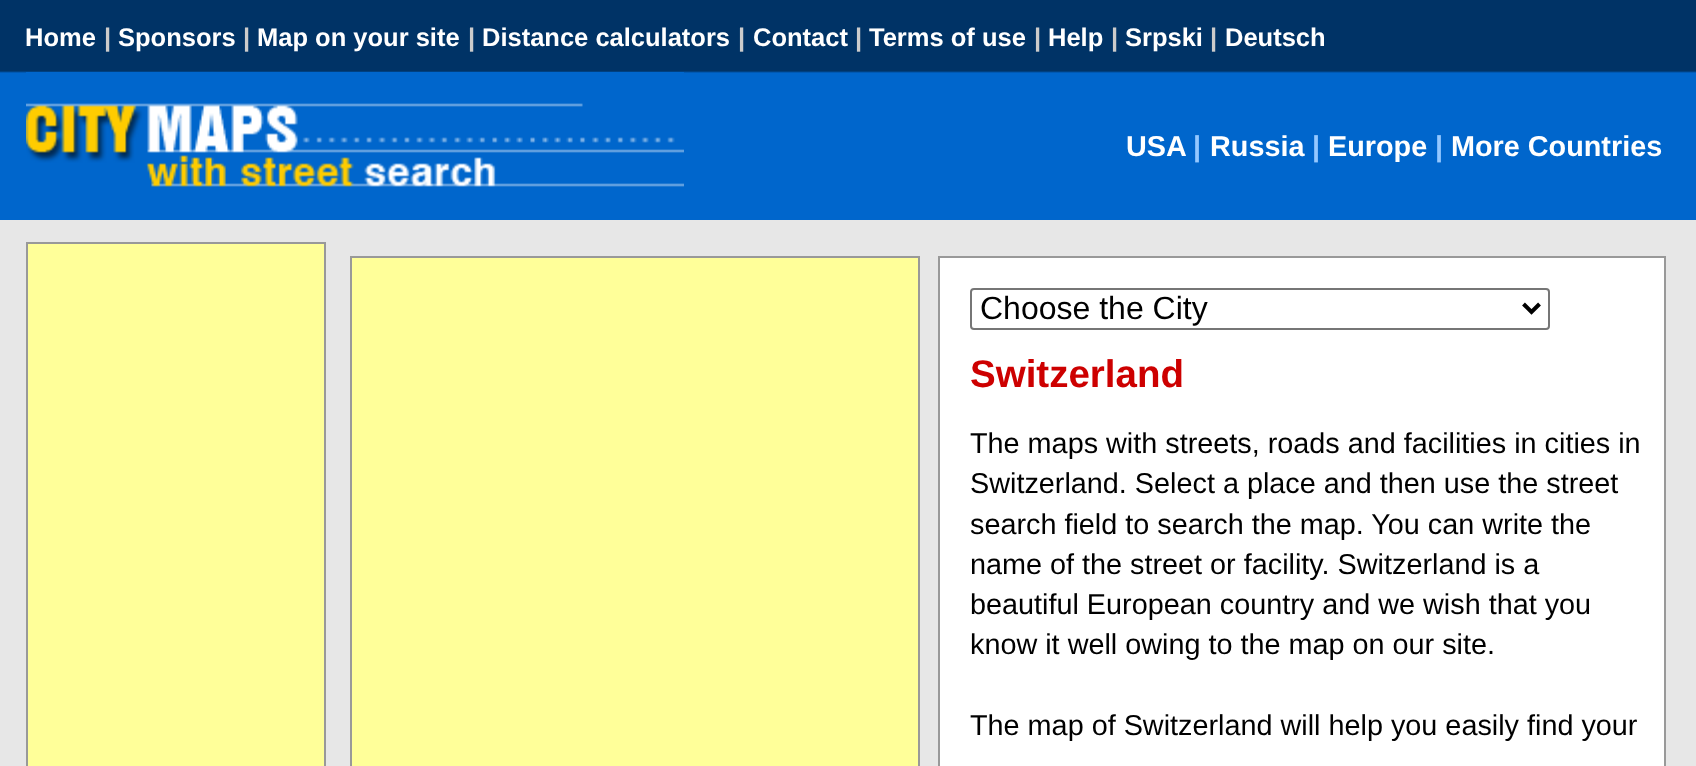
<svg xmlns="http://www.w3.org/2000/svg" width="1696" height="766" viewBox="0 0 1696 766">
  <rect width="100%" height="100%" fill="#e7e7e7"/>
  <image x="0" y="0" width="1696" height="220" href="img1.png"/>
  <text x="25" y="46" font-family="Liberation Sans" font-size="25.5" font-weight="bold" fill="#ffffff">Home</text>
  <text x="104" y="46" font-family="Liberation Sans" font-size="25.5" font-weight="bold" fill="#cccccc">|</text>
  <text x="118" y="46" font-family="Liberation Sans" font-size="25.5" font-weight="bold" fill="#ffffff">Sponsors</text>
  <text x="243" y="46" font-family="Liberation Sans" font-size="25.5" font-weight="bold" fill="#cccccc">|</text>
  <text x="257" y="46" font-family="Liberation Sans" font-size="25.5" font-weight="bold" fill="#ffffff">Map on your site</text>
  <text x="468" y="46" font-family="Liberation Sans" font-size="25.5" font-weight="bold" fill="#cccccc">|</text>
  <text x="482" y="46" font-family="Liberation Sans" font-size="25.5" font-weight="bold" fill="#ffffff">Distance calculators</text>
  <text x="738" y="46" font-family="Liberation Sans" font-size="25.5" font-weight="bold" fill="#cccccc">|</text>
  <text x="753" y="46" font-family="Liberation Sans" font-size="25.5" font-weight="bold" fill="#ffffff">Contact</text>
  <text x="855" y="46" font-family="Liberation Sans" font-size="25.5" font-weight="bold" fill="#cccccc">|</text>
  <text x="869" y="46" font-family="Liberation Sans" font-size="25.5" font-weight="bold" fill="#ffffff">Terms of use</text>
  <text x="1034" y="46" font-family="Liberation Sans" font-size="25.5" font-weight="bold" fill="#cccccc">|</text>
  <text x="1048" y="46" font-family="Liberation Sans" font-size="25.5" font-weight="bold" fill="#ffffff">Help</text>
  <text x="1111" y="46" font-family="Liberation Sans" font-size="25.5" font-weight="bold" fill="#cccccc">|</text>
  <text x="1125" y="46" font-family="Liberation Sans" font-size="25.5" font-weight="bold" fill="#ffffff">Srpski</text>
  <text x="1210" y="46" font-family="Liberation Sans" font-size="25.5" font-weight="bold" fill="#cccccc">|</text>
  <text x="1225" y="46" font-family="Liberation Sans" font-size="25.5" font-weight="bold" fill="#ffffff">Deutsch</text>
  <image x="26" y="72" width="658" height="115" href="img2.png"/>
  <text x="1126" y="156" font-family="Liberation Sans" font-size="28.8" font-weight="bold" fill="#ffffff">USA</text>
  <text x="1193" y="156" font-family="Liberation Sans" font-size="28.8" font-weight="bold" fill="#95c8ff">|</text>
  <text x="1210" y="156" font-family="Liberation Sans" font-size="28.8" font-weight="bold" fill="#ffffff">Russia</text>
  <text x="1312" y="156" font-family="Liberation Sans" font-size="28.8" font-weight="bold" fill="#95c8ff">|</text>
  <text x="1328" y="156" font-family="Liberation Sans" font-size="28.8" font-weight="bold" fill="#ffffff">Europe</text>
  <text x="1435" y="156" font-family="Liberation Sans" font-size="28.8" font-weight="bold" fill="#95c8ff">|</text>
  <text x="1451" y="156" font-family="Liberation Sans" font-size="28.8" font-weight="bold" fill="#ffffff">More Countries</text>
  <rect x="27" y="243" width="298" height="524" fill="none" stroke="#999999" stroke-width="2"/>
  <rect x="28" y="244" width="296" height="522" fill="#ffff99"/>
  <rect x="351" y="257" width="568" height="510" fill="none" stroke="#999999" stroke-width="2"/>
  <rect x="352" y="258" width="566" height="508" fill="#ffff99"/>
  <rect x="939" y="257" width="726" height="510" fill="#ffffff" stroke="#999999" stroke-width="2"/>
  <rect x="971" y="289" width="578" height="40" rx="3" fill="none" stroke="#767676" stroke-width="2"/>
  <path d="M1523.5 304L1531.5 312L1539.5 304" fill="none" stroke="#000000" stroke-width="4"/>
  <text x="980" y="319" font-family="Liberation Sans" font-size="32" fill="#000000">Choose the City</text>
  <text x="970" y="387" font-family="Liberation Sans" font-size="38.5" font-weight="bold" fill="#cd0000">Switzerland</text>
  <text x="970" y="453" font-family="Liberation Sans" font-size="28.8" fill="#000000">The maps with streets, roads and facilities in cities in</text>
  <text x="970" y="493" font-family="Liberation Sans" font-size="28.8" fill="#000000">Switzerland. Select a place and then use the street</text>
  <text x="970" y="534" font-family="Liberation Sans" font-size="28.8" fill="#000000">search field to search the map. You can write the</text>
  <text x="970" y="574" font-family="Liberation Sans" font-size="28.8" fill="#000000">name of the street or facility. Switzerland is a</text>
  <text x="970" y="614" font-family="Liberation Sans" font-size="28.8" fill="#000000">beautiful European country and we wish that you</text>
  <text x="970" y="654" font-family="Liberation Sans" font-size="28.8" fill="#000000">know it well owing to the map on our site.</text>
  <text x="970" y="735" font-family="Liberation Sans" font-size="28.8" fill="#000000">The map of Switzerland will help you easily find your</text>
</svg>
